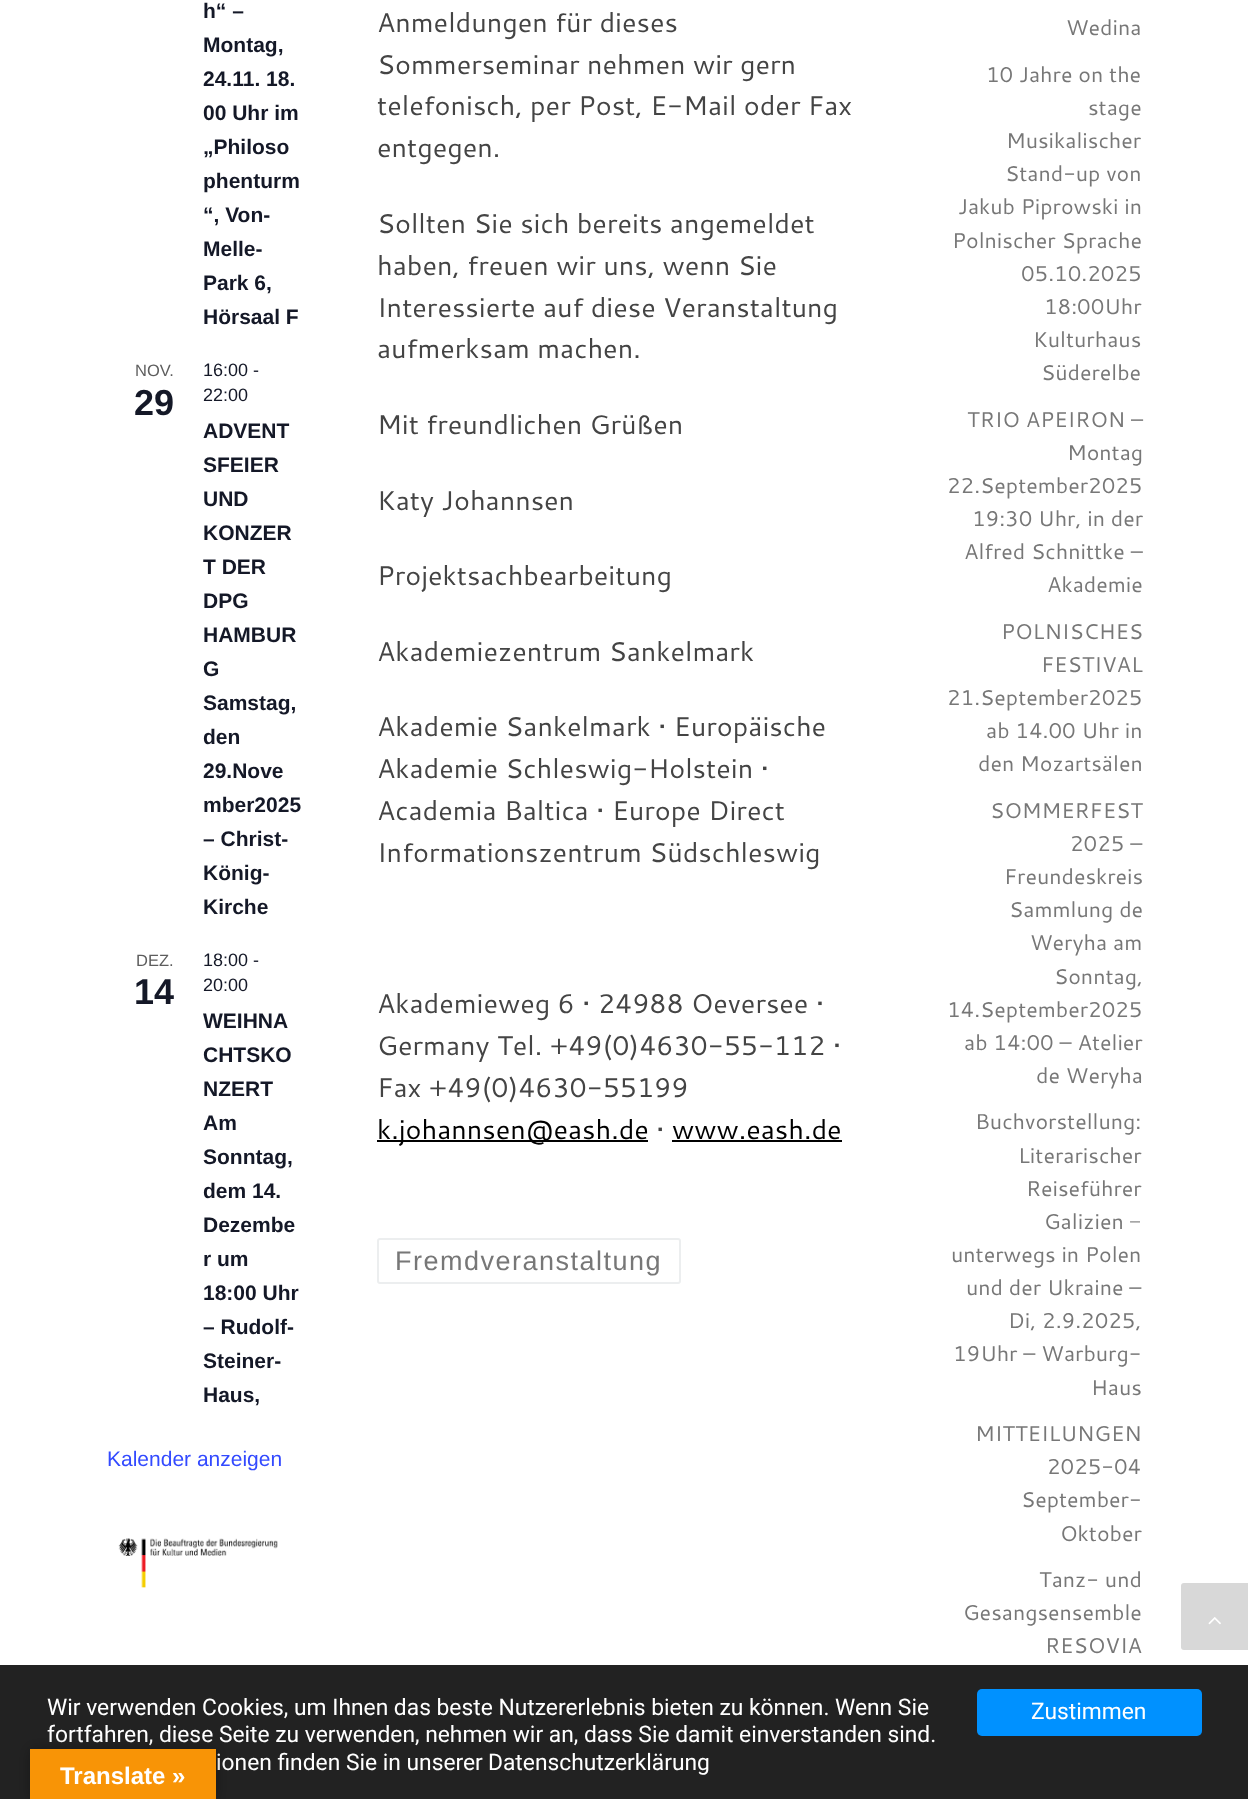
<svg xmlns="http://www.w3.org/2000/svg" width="1248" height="1799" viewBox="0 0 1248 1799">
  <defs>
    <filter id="blur1" x="-50%" y="-200%" width="200%" height="500%"><feGaussianBlur stdDeviation="7"/></filter>
  </defs>
  <rect width="100%" height="100%" fill="#ffffff"/>
  <text x="203" y="18" font-family="Liberation Sans" font-size="21" font-weight="bold" fill="#141827">h“ –</text>
  <text x="203" y="52" font-family="Liberation Sans" font-size="21" font-weight="bold" fill="#141827">Montag,</text>
  <text x="203" y="86" font-family="Liberation Sans" font-size="21" font-weight="bold" fill="#141827">24.11. 18.</text>
  <text x="203" y="120" font-family="Liberation Sans" font-size="21" font-weight="bold" fill="#141827">00 Uhr im</text>
  <text x="203" y="154" font-family="Liberation Sans" font-size="21" font-weight="bold" fill="#141827">„Philoso</text>
  <text x="203" y="188" font-family="Liberation Sans" font-size="21" font-weight="bold" fill="#141827">phenturm</text>
  <text x="203" y="222" font-family="Liberation Sans" font-size="21" font-weight="bold" fill="#141827">“, Von-</text>
  <text x="203" y="256" font-family="Liberation Sans" font-size="21" font-weight="bold" fill="#141827">Melle-</text>
  <text x="203" y="290" font-family="Liberation Sans" font-size="21" font-weight="bold" fill="#141827">Park 6,</text>
  <text x="203" y="324" font-family="Liberation Sans" font-size="21" font-weight="bold" fill="#141827">Hörsaal F</text>
  <text x="135" y="376" font-family="Liberation Sans" font-size="16.5" fill="#5d5d5d">NOV.</text>
  <text x="134" y="415" font-family="Liberation Sans" font-size="36" font-weight="bold" fill="#141827">29</text>
  <text x="203" y="376" font-family="Liberation Sans" font-size="18" fill="#141827">16:00 -</text>
  <text x="203" y="401" font-family="Liberation Sans" font-size="18" fill="#141827">22:00</text>
  <text x="203" y="438" font-family="Liberation Sans" font-size="21" font-weight="bold" fill="#141827">ADVENT</text>
  <text x="203" y="472" font-family="Liberation Sans" font-size="21" font-weight="bold" fill="#141827">SFEIER</text>
  <text x="203" y="506" font-family="Liberation Sans" font-size="21" font-weight="bold" fill="#141827">UND</text>
  <text x="203" y="540" font-family="Liberation Sans" font-size="21" font-weight="bold" fill="#141827">KONZER</text>
  <text x="203" y="574" font-family="Liberation Sans" font-size="21" font-weight="bold" fill="#141827">T DER</text>
  <text x="203" y="608" font-family="Liberation Sans" font-size="21" font-weight="bold" fill="#141827">DPG</text>
  <text x="203" y="642" font-family="Liberation Sans" font-size="21" font-weight="bold" fill="#141827">HAMBUR</text>
  <text x="203" y="676" font-family="Liberation Sans" font-size="21" font-weight="bold" fill="#141827">G</text>
  <text x="203" y="710" font-family="Liberation Sans" font-size="21" font-weight="bold" fill="#141827">Samstag,</text>
  <text x="203" y="744" font-family="Liberation Sans" font-size="21" font-weight="bold" fill="#141827">den</text>
  <text x="203" y="778" font-family="Liberation Sans" font-size="21" font-weight="bold" fill="#141827">29.Nove</text>
  <text x="203" y="812" font-family="Liberation Sans" font-size="21" font-weight="bold" fill="#141827">mber2025</text>
  <text x="203" y="846" font-family="Liberation Sans" font-size="21" font-weight="bold" fill="#141827">– Christ-</text>
  <text x="203" y="880" font-family="Liberation Sans" font-size="21" font-weight="bold" fill="#141827">König-</text>
  <text x="203" y="914" font-family="Liberation Sans" font-size="21" font-weight="bold" fill="#141827">Kirche</text>
  <text x="136" y="966" font-family="Liberation Sans" font-size="16.5" fill="#5d5d5d">DEZ.</text>
  <text x="134" y="1004" font-family="Liberation Sans" font-size="36" font-weight="bold" fill="#141827">14</text>
  <text x="203" y="966" font-family="Liberation Sans" font-size="18" fill="#141827">18:00 -</text>
  <text x="203" y="991" font-family="Liberation Sans" font-size="18" fill="#141827">20:00</text>
  <text x="203" y="1028" font-family="Liberation Sans" font-size="21" font-weight="bold" fill="#141827">WEIHNA</text>
  <text x="203" y="1062" font-family="Liberation Sans" font-size="21" font-weight="bold" fill="#141827">CHTSKO</text>
  <text x="203" y="1096" font-family="Liberation Sans" font-size="21" font-weight="bold" fill="#141827">NZERT</text>
  <text x="203" y="1130" font-family="Liberation Sans" font-size="21" font-weight="bold" fill="#141827">Am</text>
  <text x="203" y="1164" font-family="Liberation Sans" font-size="21" font-weight="bold" fill="#141827">Sonntag,</text>
  <text x="203" y="1198" font-family="Liberation Sans" font-size="21" font-weight="bold" fill="#141827">dem 14.</text>
  <text x="203" y="1232" font-family="Liberation Sans" font-size="21" font-weight="bold" fill="#141827">Dezembe</text>
  <text x="203" y="1266" font-family="Liberation Sans" font-size="21" font-weight="bold" fill="#141827">r um</text>
  <text x="203" y="1300" font-family="Liberation Sans" font-size="21" font-weight="bold" fill="#141827">18:00 Uhr</text>
  <text x="203" y="1334" font-family="Liberation Sans" font-size="21" font-weight="bold" fill="#141827">– Rudolf-</text>
  <text x="203" y="1368" font-family="Liberation Sans" font-size="21" font-weight="bold" fill="#141827">Steiner-</text>
  <text x="203" y="1402" font-family="Liberation Sans" font-size="21" font-weight="bold" fill="#141827">Haus,</text>
  <text x="107" y="1466" font-family="Liberation Sans" font-size="21" fill="#334aff">Kalender anzeigen</text>
  <image x="118" y="1538" width="160" height="50" href="img1.png"/>
  <text x="377" y="32" font-family="Cantarell" font-size="27" fill="#444444">Anmeldungen für dieses</text>
  <text x="377" y="74" font-family="Cantarell" font-size="27" fill="#444444">Sommerseminar nehmen wir gern</text>
  <text x="377" y="115" font-family="Cantarell" font-size="27" fill="#444444">telefonisch, per Post, E-Mail oder Fax</text>
  <text x="377" y="157" font-family="Cantarell" font-size="27" fill="#444444">entgegen.</text>
  <text x="377" y="233" font-family="Cantarell" font-size="27" fill="#444444">Sollten Sie sich bereits angemeldet</text>
  <text x="377" y="275" font-family="Cantarell" font-size="27" fill="#444444">haben, freuen wir uns, wenn Sie</text>
  <text x="377" y="317" font-family="Cantarell" font-size="27" fill="#444444">Interessierte auf diese Veranstaltung</text>
  <text x="377" y="358" font-family="Cantarell" font-size="27" fill="#444444">aufmerksam machen.</text>
  <text x="377" y="434" font-family="Cantarell" font-size="27" fill="#444444">Mit freundlichen Grüßen</text>
  <text x="377" y="510" font-family="Cantarell" font-size="27" fill="#444444">Katy Johannsen</text>
  <text x="377" y="585" font-family="Cantarell" font-size="27" fill="#444444">Projektsachbearbeitung</text>
  <text x="377" y="661" font-family="Cantarell" font-size="27" fill="#444444">Akademiezentrum Sankelmark</text>
  <text x="377" y="736" font-family="Cantarell" font-size="27" fill="#444444">Akademie Sankelmark • Europäische</text>
  <text x="377" y="778" font-family="Cantarell" font-size="27" fill="#444444">Akademie Schleswig-Holstein •</text>
  <text x="377" y="820" font-family="Cantarell" font-size="27" fill="#444444">Academia Baltica • Europe Direct</text>
  <text x="377" y="862" font-family="Cantarell" font-size="27" fill="#444444">Informationszentrum Südschleswig</text>
  <text x="377" y="1013" font-family="Cantarell" font-size="27" fill="#444444">Akademieweg 6 • 24988 Oeversee •</text>
  <text x="377" y="1055" font-family="Cantarell" font-size="27" fill="#444444">Germany Tel. +49(0)4630-55-112 •</text>
  <text x="377" y="1097" font-family="Cantarell" font-size="27" fill="#444444">Fax +49(0)4630-55199</text>
  <rect x="377" y="1140" width="271" height="2" fill="#000000"/>
  <text x="377" y="1139" font-family="Cantarell" font-size="27" fill="#000000">k.johannsen@eash.de</text>
  <text x="656" y="1139" font-family="Cantarell" font-size="27" fill="#444444">•</text>
  <text x="672" y="1139" font-family="Cantarell" font-size="27" fill="#000000">www.eash.de</text>
  <rect x="672" y="1140" width="170" height="2" fill="#000000"/>
  <rect x="378" y="1239" width="302" height="44" rx="2" fill="none" stroke="#eceeef" stroke-width="2"/>
  <text x="395" y="1270" font-family="Liberation Sans" font-size="27" letter-spacing="1.5" fill="#777777">Fremdveranstaltung</text>
  <text x="1066" y="35" font-family="Cantarell" font-size="21.4" fill="#777777">Wedina</text>
  <text x="986" y="82" font-family="Cantarell" font-size="21.4" fill="#777777">10 Jahre on the</text>
  <text x="1088" y="115" font-family="Cantarell" font-size="21.4" fill="#777777">stage</text>
  <text x="1006" y="148" font-family="Cantarell" font-size="21.4" fill="#777777">Musikalischer</text>
  <text x="1005" y="181" font-family="Cantarell" font-size="21.4" fill="#777777">Stand-up von</text>
  <text x="958" y="214" font-family="Cantarell" font-size="21.4" fill="#777777">Jakub Piprowski in</text>
  <text x="952" y="248" font-family="Cantarell" font-size="21.4" fill="#777777">Polnischer Sprache</text>
  <text x="1021" y="281" font-family="Cantarell" font-size="21.4" fill="#777777">05.10.2025</text>
  <text x="1044" y="314" font-family="Cantarell" font-size="21.4" fill="#777777">18:00Uhr</text>
  <text x="1033" y="347" font-family="Cantarell" font-size="21.4" fill="#777777">Kulturhaus</text>
  <text x="1041" y="380" font-family="Cantarell" font-size="21.4" fill="#777777">Süderelbe</text>
  <text x="967" y="427" font-family="Cantarell" font-size="21.4" fill="#777777">TRIO APEIRON –</text>
  <text x="1067" y="460" font-family="Cantarell" font-size="21.4" fill="#777777">Montag</text>
  <text x="947" y="493" font-family="Cantarell" font-size="21.4" fill="#777777">22.September2025</text>
  <text x="972" y="526" font-family="Cantarell" font-size="21.4" fill="#777777">19:30 Uhr, in der</text>
  <text x="964" y="559" font-family="Cantarell" font-size="21.4" fill="#777777">Alfred Schnittke –</text>
  <text x="1047" y="592" font-family="Cantarell" font-size="21.4" fill="#777777">Akademie</text>
  <text x="1001" y="639" font-family="Cantarell" font-size="21.4" fill="#777777">POLNISCHES</text>
  <text x="1041" y="672" font-family="Cantarell" font-size="21.4" fill="#777777">FESTIVAL</text>
  <text x="947" y="705" font-family="Cantarell" font-size="21.4" fill="#777777">21.September2025</text>
  <text x="986" y="738" font-family="Cantarell" font-size="21.4" fill="#777777">ab 14.00 Uhr in</text>
  <text x="978" y="771" font-family="Cantarell" font-size="21.4" fill="#777777">den Mozartsälen</text>
  <text x="990" y="818" font-family="Cantarell" font-size="21.4" fill="#777777">SOMMERFEST</text>
  <text x="1070" y="851" font-family="Cantarell" font-size="21.4" fill="#777777">2025 –</text>
  <text x="1004" y="884" font-family="Cantarell" font-size="21.4" fill="#777777">Freundeskreis</text>
  <text x="1009" y="917" font-family="Cantarell" font-size="21.4" fill="#777777">Sammlung de</text>
  <text x="1030" y="950" font-family="Cantarell" font-size="21.4" fill="#777777">Weryha am</text>
  <text x="1054" y="984" font-family="Cantarell" font-size="21.4" fill="#777777">Sonntag,</text>
  <text x="947" y="1017" font-family="Cantarell" font-size="21.4" fill="#777777">14.September2025</text>
  <text x="964" y="1050" font-family="Cantarell" font-size="21.4" fill="#777777">ab 14:00 – Atelier</text>
  <text x="1036" y="1083" font-family="Cantarell" font-size="21.4" fill="#777777">de Weryha</text>
  <text x="975" y="1129" font-family="Cantarell" font-size="21.4" fill="#777777">Buchvorstellung:</text>
  <text x="1018" y="1163" font-family="Cantarell" font-size="21.4" fill="#777777">Literarischer</text>
  <text x="1026" y="1196" font-family="Cantarell" font-size="21.4" fill="#777777">Reiseführer</text>
  <text x="1044" y="1229" font-family="Cantarell" font-size="21.4" fill="#777777">Galizien</text>
  <text x="1129" y="1229" font-family="Liberation Serif" font-size="21.4" fill="#777777">−</text>
  <text x="951" y="1262" font-family="Cantarell" font-size="21.4" fill="#777777">unterwegs in Polen</text>
  <text x="966" y="1295" font-family="Cantarell" font-size="21.4" fill="#777777">und der Ukraine –</text>
  <text x="1008" y="1328" font-family="Cantarell" font-size="21.4" fill="#777777">Di, 2.9.2025,</text>
  <text x="953" y="1361" font-family="Cantarell" font-size="21.4" fill="#777777">19Uhr – Warburg-</text>
  <text x="1091" y="1395" font-family="Cantarell" font-size="21.4" fill="#777777">Haus</text>
  <text x="975" y="1441" font-family="Cantarell" font-size="21.4" fill="#777777">MITTEILUNGEN</text>
  <text x="1047" y="1474" font-family="Cantarell" font-size="21.4" fill="#777777">2025-04</text>
  <text x="1021" y="1507" font-family="Cantarell" font-size="21.4" fill="#777777">September-</text>
  <text x="1060" y="1541" font-family="Cantarell" font-size="21.4" fill="#777777">Oktober</text>
  <text x="1039" y="1587" font-family="Cantarell" font-size="21.4" fill="#777777">Tanz- und</text>
  <text x="963" y="1620" font-family="Cantarell" font-size="21.4" fill="#777777">Gesangsensemble</text>
  <text x="1045" y="1653" font-family="Cantarell" font-size="21.4" fill="#777777">RESOVIA</text>
  <rect x="1181" y="1583" width="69" height="67" rx="3" fill="#d8d8d8"/>
  <image x="1208" y="1617" width="13" height="8" href="img2.png"/>
  <rect x="0" y="1665" width="1248" height="134" fill="#222222"/>
  <text x="47" y="1715" font-family="Roboto" font-size="22.8" fill="#ffffff">Wir verwenden Cookies, um Ihnen das beste Nutzererlebnis bieten zu können. Wenn Sie</text>
  <text x="47" y="1742" font-family="Roboto" font-size="22.8" fill="#ffffff">fortfahren, diese Seite zu verwenden, nehmen wir an, dass Sie damit einverstanden sind.</text>
  <text x="216" y="1770" font-family="Roboto" font-size="22.8" fill="#ffffff">ionen finden Sie in unserer</text>
  <text x="488" y="1770" font-family="Roboto" font-size="22.8" fill="#ffffff">Datenschutzerklärung</text>
  <rect x="977" y="1689" width="225" height="47" rx="5" fill="#0091ff"/>
  <text x="1031" y="1719" font-family="Roboto" font-size="22.8" fill="#ffffff">Zustimmen</text>
  <rect x="30" y="1749" width="186" height="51" fill="#000000" fill-opacity="0.3" filter="url(#blur1)"/>
  <rect x="30" y="1749" width="186" height="50" fill="#f89406"/>
  <text x="60" y="1784" font-family="Liberation Sans" font-size="24" font-weight="bold" fill="#ffffff">Translate »</text>
</svg>
